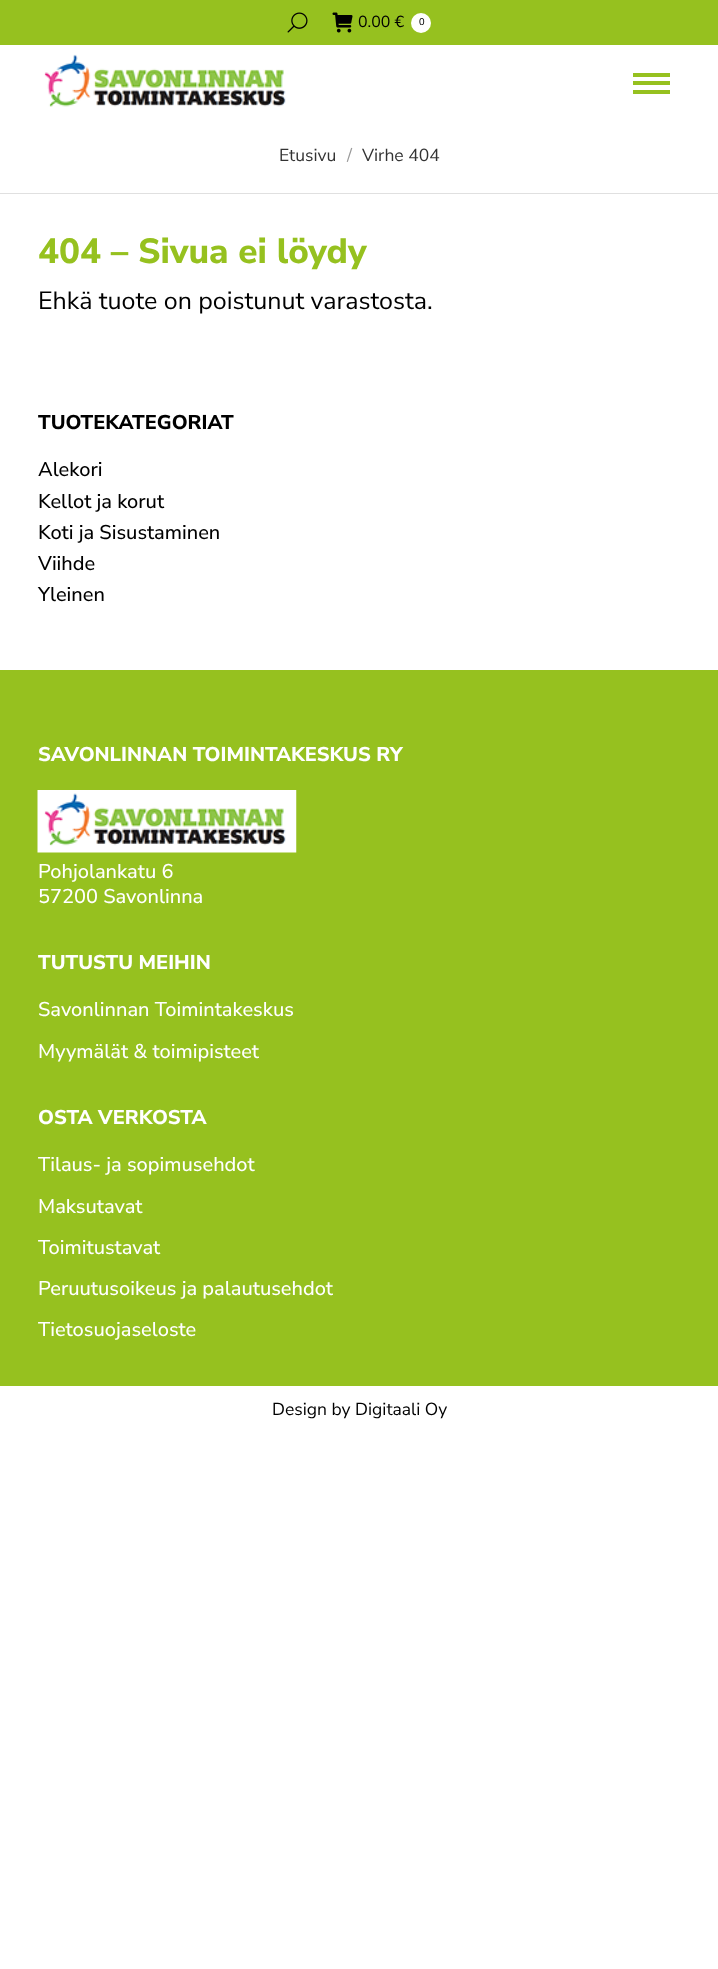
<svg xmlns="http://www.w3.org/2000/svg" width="718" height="1969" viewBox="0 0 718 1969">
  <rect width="100%" height="100%" fill="#ffffff"/>
  <rect x="0" y="0" width="718" height="45" fill="#96c11f"/>
  <image x="287" y="12" width="21" height="21" href="img1.png"/>
  <image x="332" y="12" width="21" height="21" href="img2.png"/>
  <text x="358" y="27" font-family="Nunito Sans" font-size="16" fill="#000000">0.00 €</text>
  <circle cx="421" cy="23" r="10" fill="#ffffff"/>
  <text x="419" y="25" font-family="Liberation Sans" font-size="10" fill="#000000">0</text>
  <image x="44" y="54" width="242" height="53" href="img3.png"/>
  <rect x="633" y="73" width="37" height="4" fill="#96c11f"/>
  <rect x="633" y="81" width="37" height="4" fill="#96c11f"/>
  <rect x="633" y="90" width="37" height="4" fill="#96c11f"/>
  <rect x="0" y="193" width="718" height="1" fill="#e0e0e0"/>
  <text x="279" y="161" font-family="Nunito Sans" font-size="17.5" fill="#333333">Etusivu</text>
  <text x="347" y="161" font-family="Nunito Sans" font-size="17.5" fill="#999999">/</text>
  <text x="362" y="161" font-family="Nunito Sans" font-size="17.5" fill="#333333">Virhe 404</text>
  <text x="38" y="263" font-family="Nunito Sans" font-size="35" font-weight="800" fill="#96c11f">404 – Sivua ei löydy</text>
  <text x="38" y="309" font-family="Nunito Sans" font-size="25" fill="#000000">Ehkä tuote on poistunut varastosta.</text>
  <text x="38" y="429" font-family="Nunito Sans" font-size="20" font-weight="800" fill="#000000">TUOTEKATEGORIAT</text>
  <text x="38" y="476" font-family="Nunito Sans" font-size="20" font-weight="500" fill="#000000">Alekori</text>
  <text x="38" y="508" font-family="Nunito Sans" font-size="20" font-weight="500" fill="#000000">Kellot ja korut</text>
  <text x="38" y="539" font-family="Nunito Sans" font-size="20" font-weight="500" fill="#000000">Koti ja Sisustaminen</text>
  <text x="38" y="570" font-family="Nunito Sans" font-size="20" font-weight="500" fill="#000000">Viihde</text>
  <text x="38" y="601" font-family="Nunito Sans" font-size="20" font-weight="500" fill="#000000">Yleinen</text>
  <rect x="0" y="670" width="718" height="716" fill="#96c11f"/>
  <text x="38" y="761" font-family="Nunito Sans" font-size="20" font-weight="800" fill="#ffffff">SAVONLINNAN TOIMINTAKESKUS RY</text>
  <image x="37" y="790" width="260" height="63" href="img4.png"/>
  <text x="38" y="878" font-family="Nunito Sans" font-size="20" font-weight="500" fill="#ffffff">Pohjolankatu 6</text>
  <text x="38" y="903" font-family="Nunito Sans" font-size="20" font-weight="500" fill="#ffffff">57200 Savonlinna</text>
  <text x="38" y="969" font-family="Nunito Sans" font-size="20" font-weight="800" fill="#ffffff">TUTUSTU MEIHIN</text>
  <text x="38" y="1016" font-family="Nunito Sans" font-size="20" font-weight="500" fill="#ffffff">Savonlinnan Toimintakeskus</text>
  <text x="38" y="1058" font-family="Nunito Sans" font-size="20" font-weight="500" fill="#ffffff">Myymälät &amp; toimipisteet</text>
  <text x="38" y="1124" font-family="Nunito Sans" font-size="20" font-weight="800" fill="#ffffff">OSTA VERKOSTA</text>
  <text x="38" y="1171" font-family="Nunito Sans" font-size="20" font-weight="500" fill="#ffffff">Tilaus- ja sopimusehdot</text>
  <text x="38" y="1213" font-family="Nunito Sans" font-size="20" font-weight="500" fill="#ffffff">Maksutavat</text>
  <text x="38" y="1254" font-family="Nunito Sans" font-size="20" font-weight="500" fill="#ffffff">Toimitustavat</text>
  <text x="38" y="1295" font-family="Nunito Sans" font-size="20" font-weight="500" fill="#ffffff">Peruutusoikeus ja palautusehdot</text>
  <text x="38" y="1336" font-family="Nunito Sans" font-size="20" font-weight="500" fill="#ffffff">Tietosuojaseloste</text>
  <text x="272" y="1415" font-family="Nunito Sans" font-size="17.5" fill="#000000">Design by Digitaali Oy</text>
</svg>
